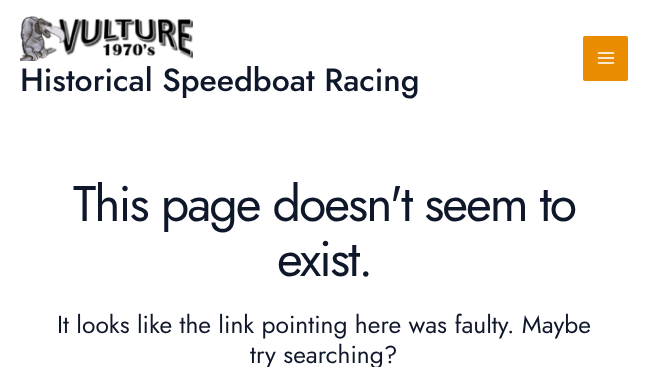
<svg xmlns="http://www.w3.org/2000/svg" width="648" height="367" viewBox="0 0 648 367">
  <rect width="100%" height="100%" fill="#ffffff"/>
  <image x="20" y="16" width="173" height="45" href="img1.png"/>
  <text x="20" y="91" font-family="Jost" font-size="32" font-weight="500" fill="#0f172a">Historical Speedboat Racing</text>
  <rect x="583" y="36" width="45" height="45" rx="2" fill="#e98c00"/>
  <image x="597" y="52" width="18" height="12" href="img2.png"/>
  <text x="73" y="221" font-family="Jost" font-size="50" letter-spacing="-2" fill="#0f172a">This page doesn't seem to</text>
  <text x="277" y="276" font-family="Jost" font-size="50" letter-spacing="-2" fill="#0f172a">exist.</text>
  <text x="57" y="333" font-family="Jost" font-size="24.6" fill="#0f172a">It looks like the link pointing here was faulty. Maybe</text>
  <text x="250" y="363" font-family="Jost" font-size="24.6" fill="#0f172a">try searching?</text>
</svg>
